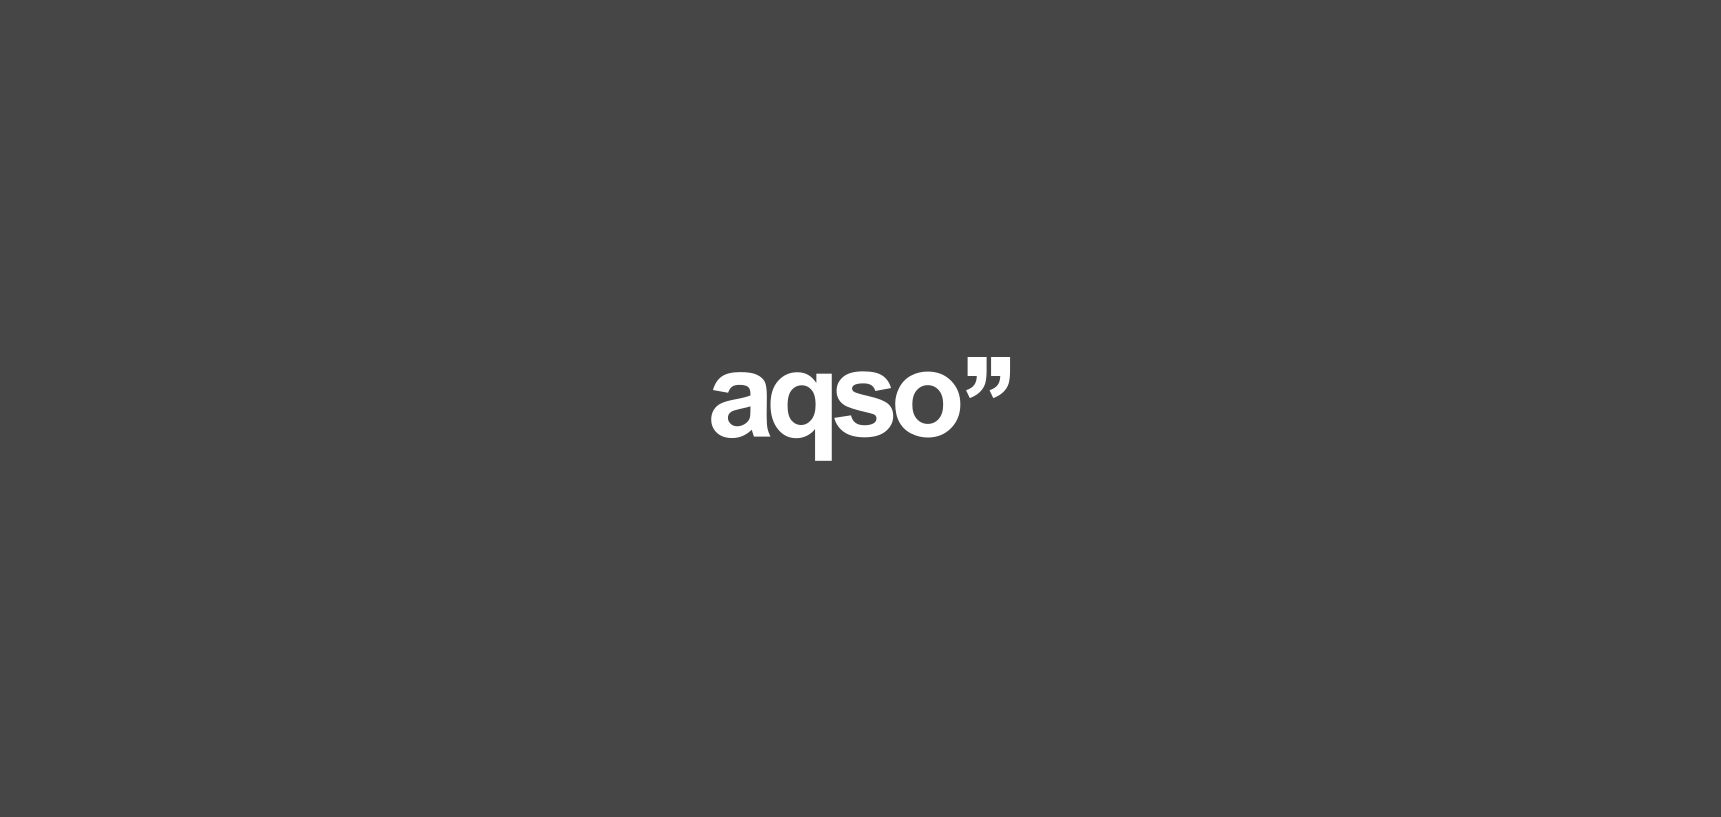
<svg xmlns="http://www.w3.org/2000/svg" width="1721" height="817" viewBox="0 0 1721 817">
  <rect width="100%" height="100%" fill="#464646"/>
  <image x="711" y="357" width="300" height="104" href="img1.png"/>
</svg>
